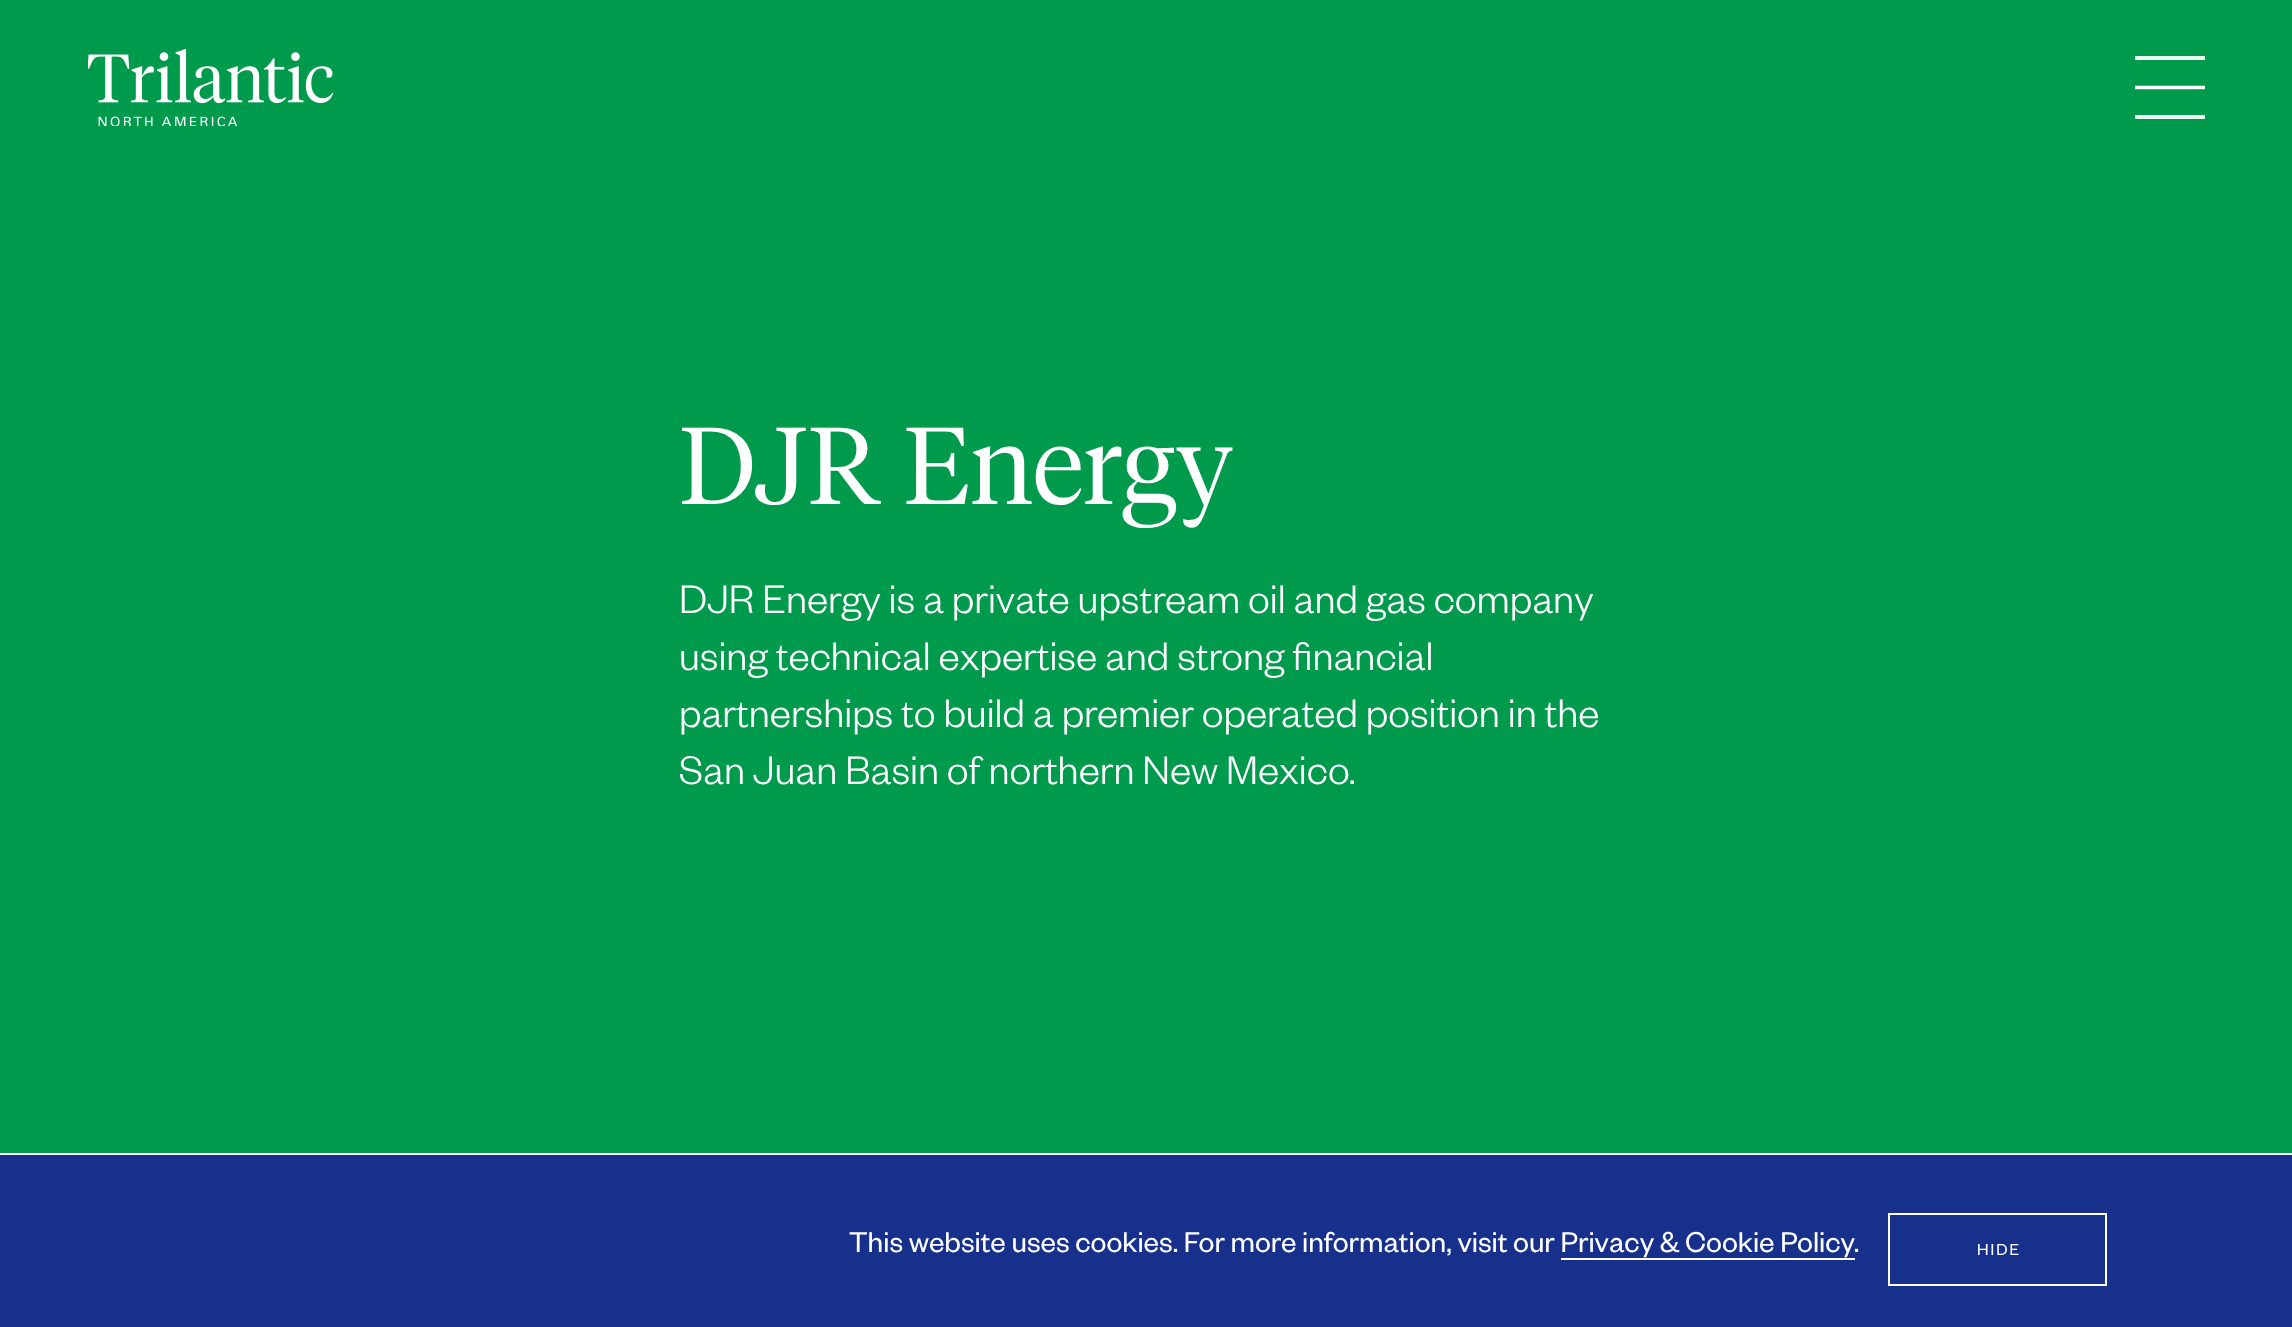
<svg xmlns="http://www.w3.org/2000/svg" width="2292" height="1327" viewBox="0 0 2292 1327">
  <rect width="100%" height="100%" fill="#009a4d"/>
  <image x="88" y="49" width="245" height="77" href="img1.png"/>
  <rect x="2135" y="56" width="70" height="4" fill="#ecf7f2"/>
  <path d="M2135 87.5H2205" fill="none" stroke="#ffffff" stroke-width="3.7"/>
  <rect x="2135" y="115" width="70" height="4" fill="#ecf7f2"/>
  <text x="679" y="504" font-family="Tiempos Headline" font-size="108.5" font-weight="300" fill="#ffffff">DJR Energy</text>
  <text x="679" y="613" font-family="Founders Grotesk" font-size="43.75" font-weight="300" fill="#ffffff">DJR Energy is a private upstream oil and gas company</text>
  <text x="679" y="670" font-family="Founders Grotesk" font-size="43.75" font-weight="300" fill="#ffffff">using technical expertise and strong financial</text>
  <text x="679" y="727" font-family="Founders Grotesk" font-size="43.75" font-weight="300" fill="#ffffff">partnerships to build a premier operated position in the</text>
  <text x="679" y="784" font-family="Founders Grotesk" font-size="43.75" font-weight="300" fill="#ffffff">San Juan Basin of northern New Mexico.</text>
  <rect x="0" y="1155" width="2292" height="172" fill="#17308b"/>
  <rect x="0" y="1153" width="2292" height="2" fill="#ffffff"/>
  <text x="849" y="1252" font-family="Founders Grotesk" font-size="31.5" fill="#ffffff">This website uses cookies. For more information, visit our Privacy &amp; Cookie Policy.</text>
  <rect x="1561" y="1258" width="294" height="2" fill="#ffffff"/>
  <rect x="1889" y="1214" width="217" height="71" fill="none" stroke="#ffffff" stroke-width="2"/>
  <text x="1977" y="1255" font-family="Founders Grotesk" font-size="17.5" letter-spacing="2" fill="#ffffff">HIDE</text>
</svg>
